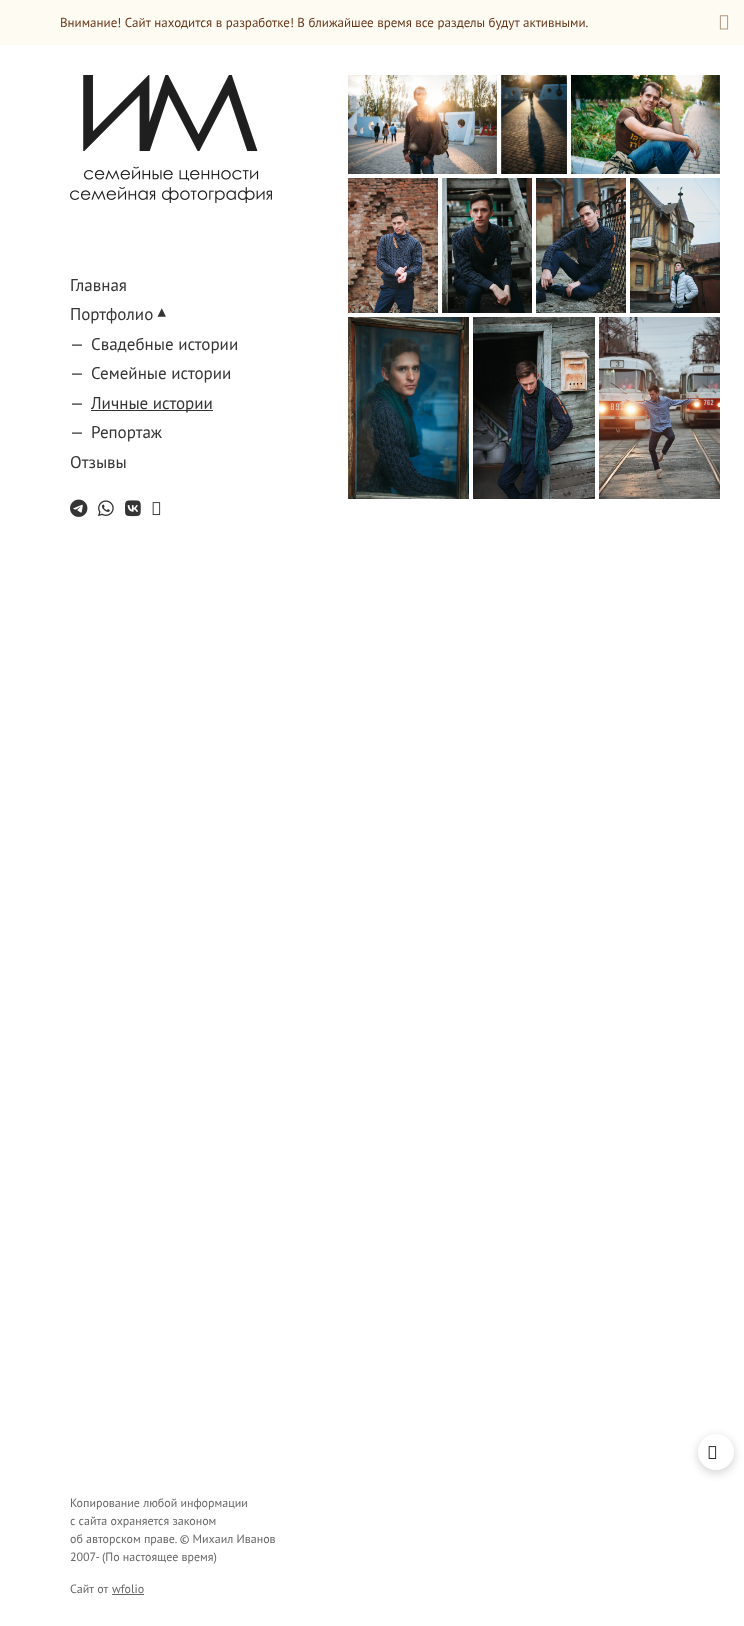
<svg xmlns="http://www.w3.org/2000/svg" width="744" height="1626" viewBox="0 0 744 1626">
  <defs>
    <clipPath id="clip1"><path d="M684 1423H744V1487H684ZM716 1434C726 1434 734 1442 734 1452C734 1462 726 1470 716 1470C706 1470 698 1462 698 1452C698 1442 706 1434 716 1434Z" clip-rule="evenodd"/></clipPath>
    <filter id="blur1" x="-50%" y="-200%" width="200%" height="500%"><feGaussianBlur stdDeviation="4"/></filter>
  </defs>
  <rect width="100%" height="100%" fill="#ffffff"/>
  <rect x="0" y="0" width="744" height="45" fill="#fefbf2"/>
  <text x="60" y="27" font-family="PT Sans" font-size="13" fill="#68371b">Внимание! Сайт находится в разработке! В ближайшее время все разделы будут активными.</text>
  <image x="719" y="15" width="10" height="15" href="img1.png"/>
  <image x="70" y="75" width="202" height="128" href="img2.png"/>
  <text x="70" y="291" font-family="PT Sans" font-size="17" fill="#353535">Главная</text>
  <text x="70" y="320" font-family="PT Sans" font-size="17" fill="#353535">Портфолио</text>
  <text x="166" y="308" transform="rotate(180 166 308)" font-family="DejaVu Sans" font-size="17" fill="#353535">▾</text>
  <text x="70" y="350" font-family="PT Sans" font-size="17" fill="#353535">—</text>
  <text x="91" y="350" font-family="PT Sans" font-size="17" fill="#353535">Свадебные истории</text>
  <text x="70" y="379" font-family="PT Sans" font-size="17" fill="#353535">—</text>
  <text x="91" y="379" font-family="PT Sans" font-size="17" fill="#353535">Семейные истории</text>
  <text x="70" y="409" font-family="PT Sans" font-size="17" fill="#353535">—</text>
  <rect x="91" y="410" width="122" height="1" fill="#353535"/>
  <text x="91" y="409" font-family="PT Sans" font-size="17" fill="#353535">Личные истории</text>
  <text x="70" y="438" font-family="PT Sans" font-size="17" fill="#353535">—</text>
  <text x="91" y="438" font-family="PT Sans" font-size="17" fill="#353535">Репортаж</text>
  <text x="70" y="468" font-family="PT Sans" font-size="17" fill="#353535">Отзывы</text>
  <image x="70" y="499" width="18" height="18" href="img3.png"/>
  <image x="98" y="500" width="16" height="17" href="img4.png"/>
  <image x="125" y="500" width="16" height="17" href="img5.png"/>
  <image x="152" y="502" width="9" height="13" href="img6.png"/>
  <text x="70" y="1507" font-family="PT Sans" font-size="12" fill="#676767">Копирование любой информации</text>
  <text x="70" y="1525" font-family="PT Sans" font-size="12" fill="#676767">с сайта охраняется законом</text>
  <text x="70" y="1543" font-family="PT Sans" font-size="12" fill="#676767">об авторском праве. © Михаил Иванов</text>
  <text x="70" y="1561" font-family="PT Sans" font-size="12" fill="#676767">2007- (По настоящее время)</text>
  <text x="70" y="1593" font-family="PT Sans" font-size="12" fill="#676767">Сайт от</text>
  <text x="112" y="1593" font-family="PT Sans" font-size="12" fill="#676767">wfolio</text>
  <rect x="112" y="1594" width="32" height="1" fill="#676767"/>
  <image x="348" y="75" width="149" height="99" href="img7.png"/>
  <image x="501" y="75" width="66" height="99" href="img8.png"/>
  <image x="571" y="75" width="149" height="99" href="img9.png"/>
  <image x="348" y="178" width="90" height="135" href="img10.png"/>
  <image x="442" y="178" width="90" height="135" href="img11.png"/>
  <image x="536" y="178" width="90" height="135" href="img12.png"/>
  <image x="630" y="178" width="90" height="135" href="img13.png"/>
  <image x="348" y="317" width="121" height="182" href="img14.png"/>
  <image x="473" y="317" width="122" height="182" href="img15.png"/>
  <image x="599" y="317" width="121" height="182" href="img16.png"/>
  <g clip-path="url(#clip1)">
    <rect x="697" y="1436" width="38" height="38" rx="19" fill="#000000" fill-opacity="0.15" filter="url(#blur1)"/>
  </g>
  <image x="708" y="1446" width="9" height="13" href="img17.png"/>
</svg>
